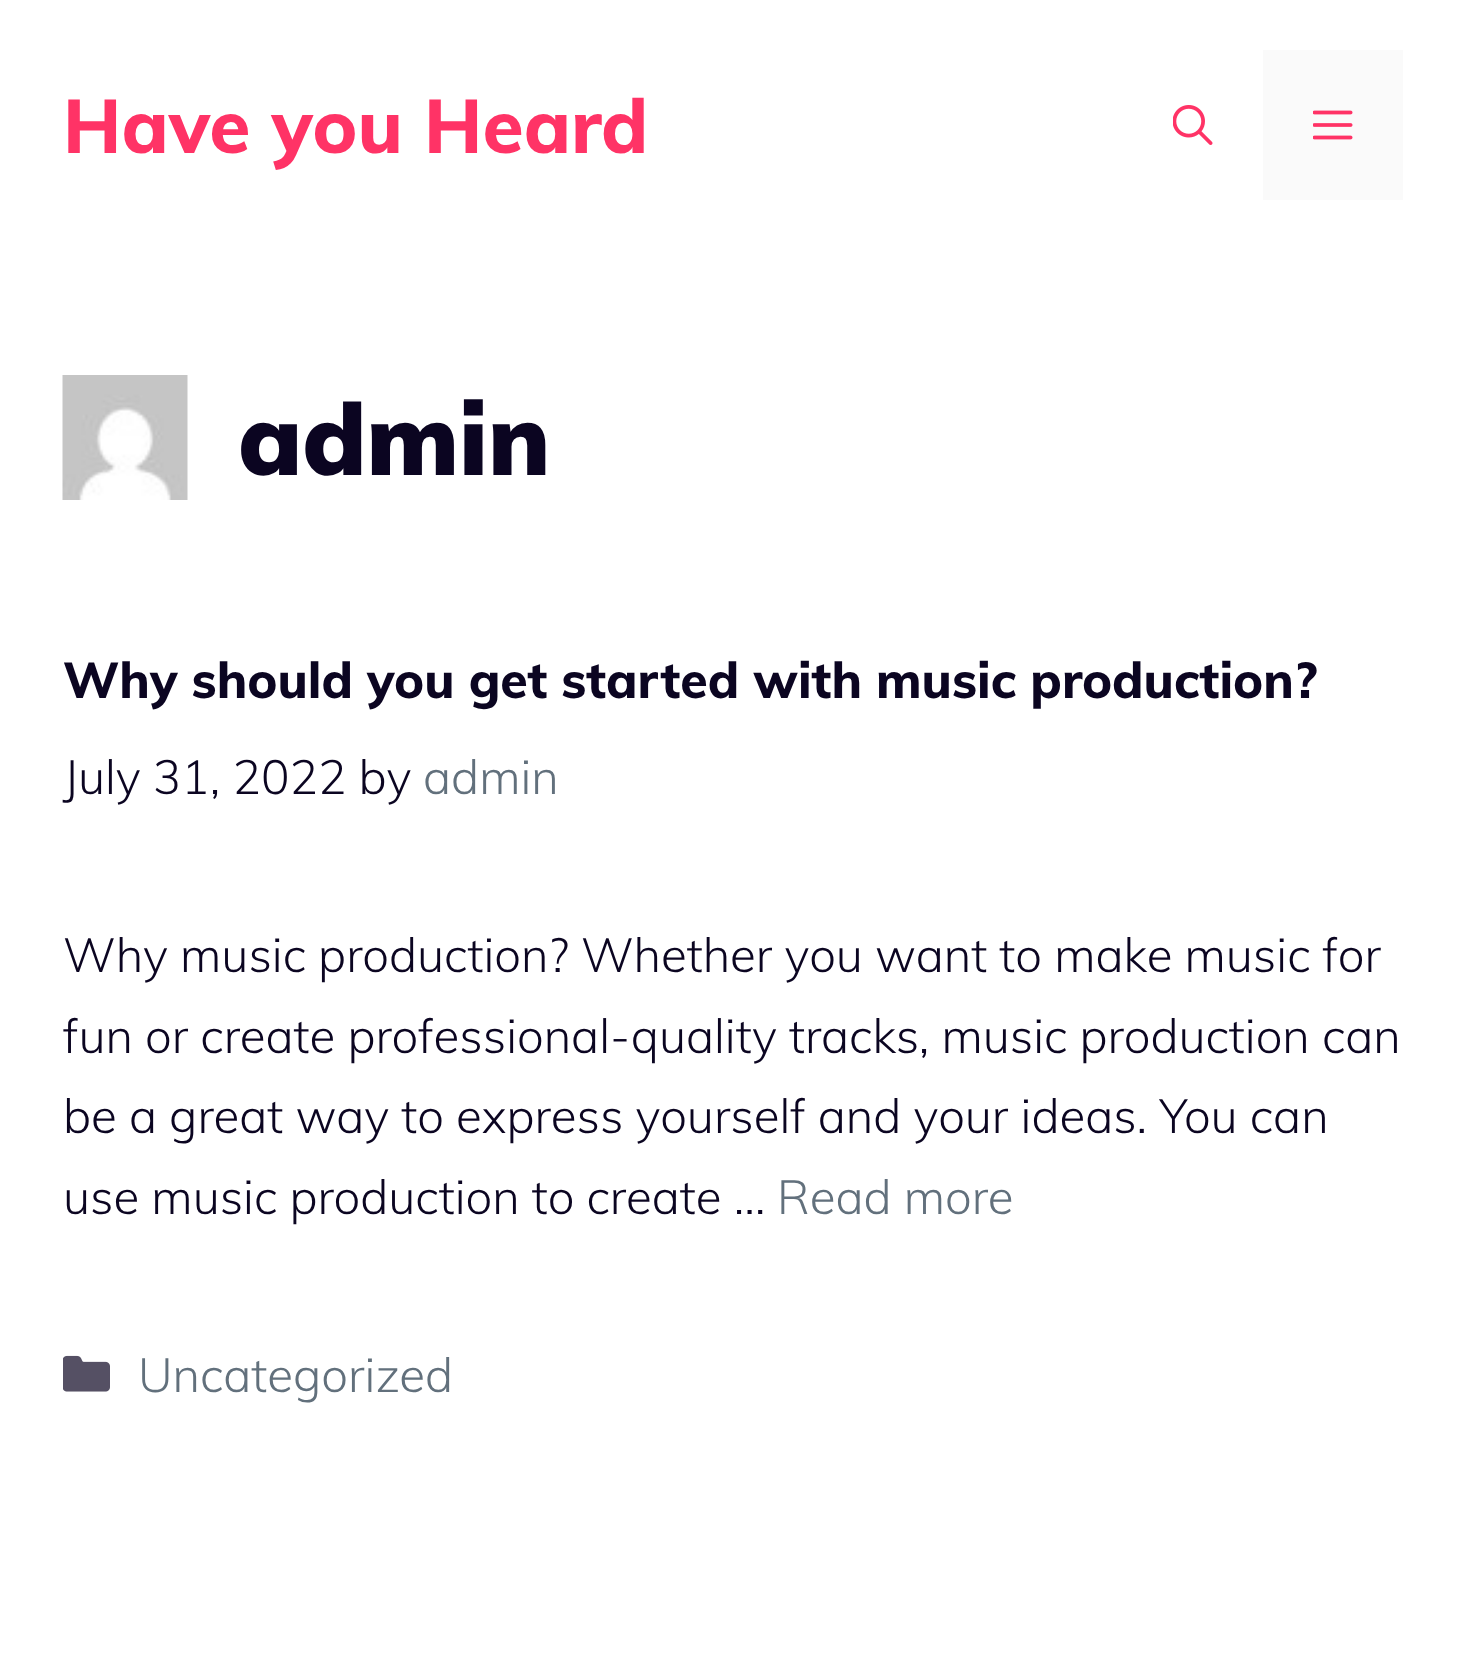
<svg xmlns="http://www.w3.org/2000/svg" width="1464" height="1660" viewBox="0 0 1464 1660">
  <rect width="100%" height="100%" fill="#ffffff"/>
  <text x="63" y="153" font-family="Muli" font-size="75" font-weight="800" fill="#ff3366">Have you Heard</text>
  <image x="1173" y="105" width="40" height="40" href="img1.png"/>
  <rect x="1263" y="50" width="140" height="150" fill="#fafafa"/>
  <image x="1313" y="110" width="40" height="30" href="img2.png"/>
  <image x="62" y="375" width="126" height="125" href="img3.png"/>
  <text x="238" y="475" font-family="Muli" font-size="100" font-weight="900" fill="#0b0521">admin</text>
  <text x="63" y="698" font-family="Muli" font-size="50" font-weight="800" fill="#0b0521">Why should you get started with music production?</text>
  <text x="63" y="794" font-family="Muli" font-size="47.5" font-weight="300" fill="#0b0521">July 31, 2022 by</text>
  <text x="423" y="794" font-family="Muli" font-size="47.5" font-weight="300" fill="#62707c">admin</text>
  <text x="63" y="972" font-family="Muli" font-size="47.5" font-weight="300" fill="#0b0521">Why music production? Whether you want to make music for</text>
  <text x="63" y="1053" font-family="Muli" font-size="47.5" font-weight="300" fill="#0b0521">fun or create professional-quality tracks, music production can</text>
  <text x="63" y="1133" font-family="Muli" font-size="47.5" font-weight="300" fill="#0b0521">be a great way to express yourself and your ideas. You can</text>
  <text x="63" y="1214" font-family="Muli" font-size="47.5" font-weight="300" fill="#0b0521">use music production to create …</text>
  <text x="777" y="1214" font-family="Muli" font-size="47.5" font-weight="300" fill="#62707c">Read more</text>
  <image x="63" y="1355" width="47" height="37" href="img4.png"/>
  <text x="138" y="1392" font-family="Muli" font-size="47.5" font-weight="300" fill="#62707c">Uncategorized</text>
</svg>
